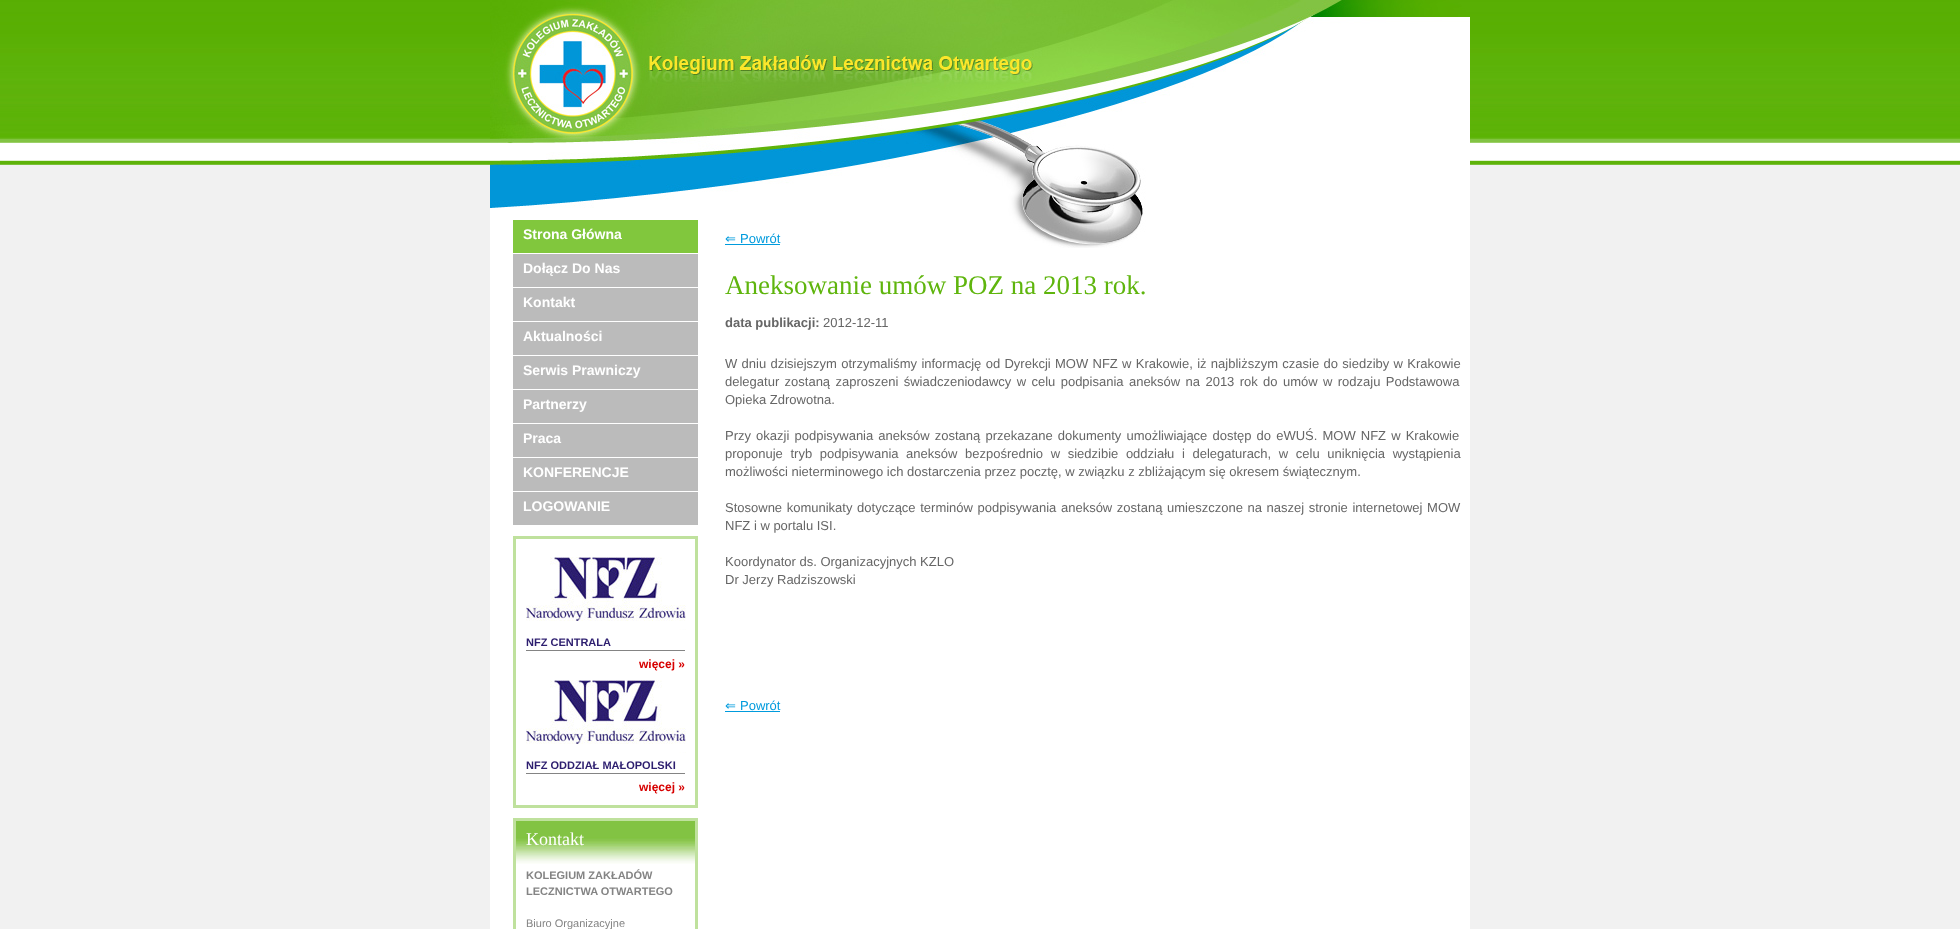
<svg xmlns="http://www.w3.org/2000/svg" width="1960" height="929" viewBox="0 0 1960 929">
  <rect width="100%" height="100%" fill="#f1f1f1"/>
  <image x="0" y="0" width="1960" height="165" href="img1.png"/>
  <rect x="490" y="248" width="980" height="681" fill="#ffffff"/>
  <image x="490" y="0" width="980" height="248" href="img2.png"/>
  <rect x="513" y="220" width="185" height="33" fill="#81c73d"/>
  <text x="523" y="239" font-family="Liberation Sans" font-size="14" font-weight="bold" fill="#ffffff">Strona Główna</text>
  <rect x="513" y="254" width="185" height="33" fill="#bbbbbb"/>
  <text x="523" y="273" font-family="Liberation Sans" font-size="14" font-weight="bold" fill="#ffffff">Dołącz Do Nas</text>
  <rect x="513" y="288" width="185" height="33" fill="#bbbbbb"/>
  <text x="523" y="307" font-family="Liberation Sans" font-size="14" font-weight="bold" fill="#ffffff">Kontakt</text>
  <rect x="513" y="322" width="185" height="33" fill="#bbbbbb"/>
  <text x="523" y="341" font-family="Liberation Sans" font-size="14" font-weight="bold" fill="#ffffff">Aktualności</text>
  <rect x="513" y="356" width="185" height="33" fill="#bbbbbb"/>
  <text x="523" y="375" font-family="Liberation Sans" font-size="14" font-weight="bold" fill="#ffffff">Serwis Prawniczy</text>
  <rect x="513" y="390" width="185" height="33" fill="#bbbbbb"/>
  <text x="523" y="409" font-family="Liberation Sans" font-size="14" font-weight="bold" fill="#ffffff">Partnerzy</text>
  <rect x="513" y="424" width="185" height="33" fill="#bbbbbb"/>
  <text x="523" y="443" font-family="Liberation Sans" font-size="14" font-weight="bold" fill="#ffffff">Praca</text>
  <rect x="513" y="458" width="185" height="33" fill="#bbbbbb"/>
  <text x="523" y="477" font-family="Liberation Sans" font-size="14" font-weight="bold" fill="#ffffff">KONFERENCJE</text>
  <rect x="513" y="492" width="185" height="33" fill="#bbbbbb"/>
  <text x="523" y="511" font-family="Liberation Sans" font-size="14" font-weight="bold" fill="#ffffff">LOGOWANIE</text>
  <rect x="514.5" y="537.5" width="182" height="269" fill="none" stroke="#bfe19d" stroke-width="3"/>
  <image x="526" y="557" width="160" height="73" href="img3.png"/>
  <text x="526" y="646" font-family="Liberation Sans" font-size="11" font-weight="bold" fill="#2d1e6f">NFZ CENTRALA</text>
  <rect x="526" y="650" width="159" height="1" fill="#848484"/>
  <text x="639" y="668" font-family="Liberation Sans" font-size="12" font-weight="bold" fill="#d70000">więcej »</text>
  <image x="526" y="680" width="160" height="73" href="img3.png"/>
  <text x="526" y="769" font-family="Liberation Sans" font-size="11" font-weight="bold" fill="#2d1e6f">NFZ ODDZIAŁ MAŁOPOLSKI</text>
  <rect x="526" y="773" width="159" height="1" fill="#848484"/>
  <text x="639" y="791" font-family="Liberation Sans" font-size="12" font-weight="bold" fill="#d70000">więcej »</text>
  <image x="516" y="821" width="179" height="43" href="img4.png"/>
  <rect x="514.5" y="819.5" width="182" height="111" fill="none" stroke="#bfe19d" stroke-width="3"/>
  <text x="526" y="845" font-family="Liberation Serif" font-size="18" fill="#ffffff">Kontakt</text>
  <text x="526" y="879" font-family="Liberation Sans" font-size="11" font-weight="bold" fill="#848484">KOLEGIUM ZAKŁADÓW</text>
  <text x="526" y="895" font-family="Liberation Sans" font-size="11" font-weight="bold" fill="#848484">LECZNICTWA OTWARTEGO</text>
  <text x="526" y="927" font-family="Liberation Sans" font-size="11" fill="#848484">Biuro Organizacyjne</text>
  <text x="725" y="243" font-family="DejaVu Sans" font-size="13" fill="#009bdd">⇐</text>
  <rect x="725" y="244" width="55" height="1" fill="#009bdd"/>
  <text x="740" y="243" font-family="Liberation Sans" font-size="13" fill="#009bdd">Powrót</text>
  <text x="725" y="294" font-family="Liberation Serif" font-size="27" fill="#5fb50d">Aneksowanie umów POZ na 2013 rok.</text>
  <text x="725" y="327" font-family="Liberation Sans" font-size="13" font-weight="bold" fill="#666666">data publikacji:</text>
  <text x="823" y="327" font-family="Liberation Sans" font-size="13" fill="#666666">2012-12-11</text>
  <text x="725" y="368" word-spacing="0.7" font-family="Liberation Sans" font-size="13" fill="#666666">W dniu dzisiejszym otrzymaliśmy informację od Dyrekcji MOW NFZ w Krakowie, iż najbliższym czasie do siedziby w Krakowie</text>
  <text x="725" y="386" word-spacing="1.75" font-family="Liberation Sans" font-size="13" fill="#666666">delegatur zostaną zaproszeni świadczeniodawcy w celu podpisania aneksów na 2013 rok do umów w rodzaju Podstawowa</text>
  <text x="725" y="404" font-family="Liberation Sans" font-size="13" fill="#666666">Opieka Zdrowotna.</text>
  <text x="725" y="440" word-spacing="1.5" font-family="Liberation Sans" font-size="13" fill="#666666">Przy okazji podpisywania aneksów zostaną przekazane dokumenty umożliwiające dostęp do eWUŚ. MOW NFZ w Krakowie</text>
  <text x="725" y="458" word-spacing="4" font-family="Liberation Sans" font-size="13" fill="#666666">proponuje tryb podpisywania aneksów bezpośrednio w siedzibie oddziału i delegaturach, w celu uniknięcia wystąpienia</text>
  <text x="725" y="476" font-family="Liberation Sans" font-size="13" fill="#666666">możliwości nieterminowego ich dostarczenia przez pocztę, w związku z zbliżającym się okresem świątecznym.</text>
  <text x="725" y="512" word-spacing="1" font-family="Liberation Sans" font-size="13" fill="#666666">Stosowne komunikaty dotyczące terminów podpisywania aneksów zostaną umieszczone na naszej stronie internetowej MOW</text>
  <text x="725" y="530" font-family="Liberation Sans" font-size="13" fill="#666666">NFZ i w portalu ISI.</text>
  <text x="725" y="566" font-family="Liberation Sans" font-size="13" fill="#666666">Koordynator ds. Organizacyjnych KZLO</text>
  <text x="725" y="584" font-family="Liberation Sans" font-size="13" fill="#666666">Dr Jerzy Radziszowski</text>
  <text x="725" y="710" font-family="DejaVu Sans" font-size="13" fill="#009bdd">⇐</text>
  <rect x="725" y="711" width="55" height="1" fill="#009bdd"/>
  <text x="740" y="710" font-family="Liberation Sans" font-size="13" fill="#009bdd">Powrót</text>
</svg>
